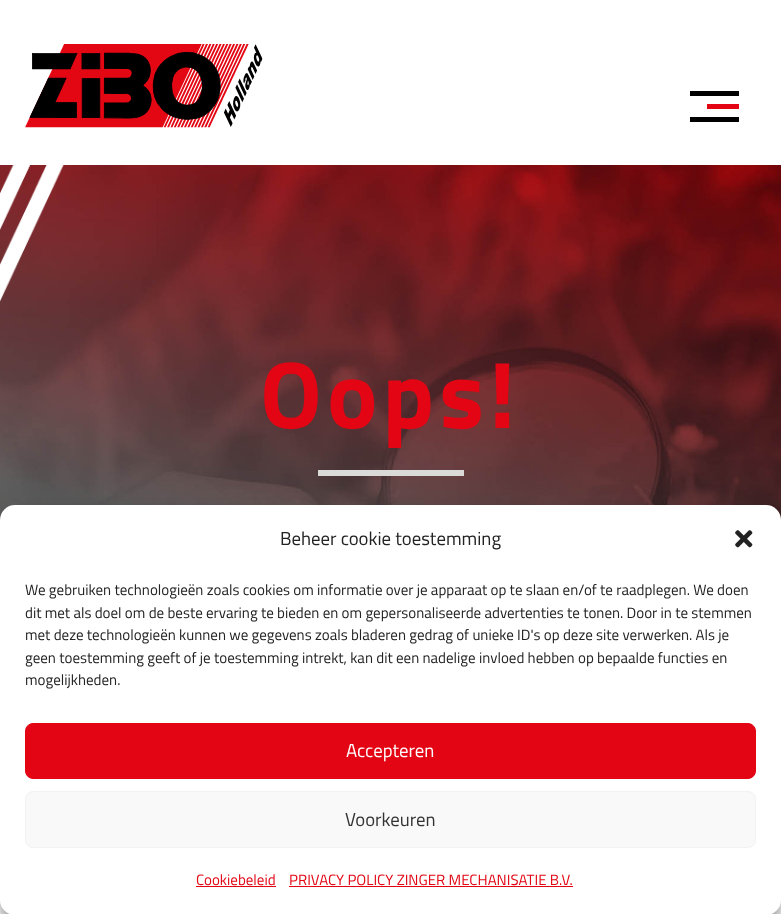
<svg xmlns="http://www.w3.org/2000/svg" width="781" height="914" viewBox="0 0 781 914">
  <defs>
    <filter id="blur1" x="-50%" y="-200%" width="200%" height="500%"><feGaussianBlur stdDeviation="4"/></filter>
    <filter id="blur2" x="-50%" y="-200%" width="200%" height="500%"><feGaussianBlur stdDeviation="12.5"/></filter>
  </defs>
  <rect width="100%" height="100%" fill="#ffffff"/>
  <image x="25" y="44" width="238" height="84" href="img1.png"/>
  <rect x="690" y="91" width="49" height="5" fill="#000000"/>
  <rect x="707" y="104" width="32" height="5" fill="#e30513"/>
  <rect x="690" y="117" width="49" height="5" fill="#000000"/>
  <image x="0" y="165" width="781" height="355" href="img3.png"/>
  <image x="0" y="165" width="64" height="137" href="img2.png"/>
  <text x="260" y="428" font-family="Titillium Web" font-size="95" font-weight="bold" letter-spacing="5" fill="#e30513">Oops!</text>
  <rect x="318" y="470" width="146" height="6" fill="#dadad9"/>
  <rect x="0" y="513" width="781" height="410" rx="15" fill="#000000" fill-opacity="0.23" filter="url(#blur1)"/>
  <rect x="0" y="518" width="781" height="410" rx="15" fill="#000000" fill-opacity="0.19" filter="url(#blur2)"/>
  <rect x="0" y="505" width="781" height="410" rx="15" fill="#ffffff"/>
  <text x="280" y="545" font-family="Titillium Web" font-size="18.75" fill="#222222">Beheer cookie toestemming</text>
  <image x="735" y="530" width="18" height="18" href="img4.png"/>
  <text x="25" y="595" font-family="Titillium Web" font-size="15" fill="#222222">We gebruiken technologieën zoals cookies om informatie over je apparaat op te slaan en/of te raadplegen. We doen</text>
  <text x="25" y="618" font-family="Titillium Web" font-size="15" fill="#222222">dit met als doel om de beste ervaring te bieden en om gepersonaliseerde advertenties te tonen. Door in te stemmen</text>
  <text x="25" y="640" font-family="Titillium Web" font-size="15" fill="#222222">met deze technologieën kunnen we gegevens zoals bladeren gedrag of unieke ID's op deze site verwerken. Als je</text>
  <text x="25" y="663" font-family="Titillium Web" font-size="15" fill="#222222">geen toestemming geeft of je toestemming intrekt, kan dit een nadelige invloed hebben op bepaalde functies en</text>
  <text x="25" y="685" font-family="Titillium Web" font-size="15" fill="#222222">mogelijkheden.</text>
  <rect x="25.5" y="723.5" width="730" height="55" rx="7.5" fill="#e30513" stroke="#e30513"/>
  <text x="346" y="757" font-family="Titillium Web" font-size="18.75" fill="#ffffff">Accepteren</text>
  <rect x="25.5" y="791.5" width="730" height="56" rx="7.5" fill="#f9f9f9" stroke="#f2f2f2"/>
  <text x="345" y="826" font-family="Titillium Web" font-size="18.75" fill="#333333">Voorkeuren</text>
  <text x="196" y="885" font-family="Titillium Web" font-size="15" fill="#e30513">Cookiebeleid</text>
  <rect x="196" y="886" width="80" height="1" fill="#e30513"/>
  <text x="289" y="885" font-family="Titillium Web" font-size="15" fill="#e30513">PRIVACY POLICY ZINGER MECHANISATIE B.V.</text>
  <rect x="289" y="886" width="284" height="1" fill="#e30513"/>
</svg>
